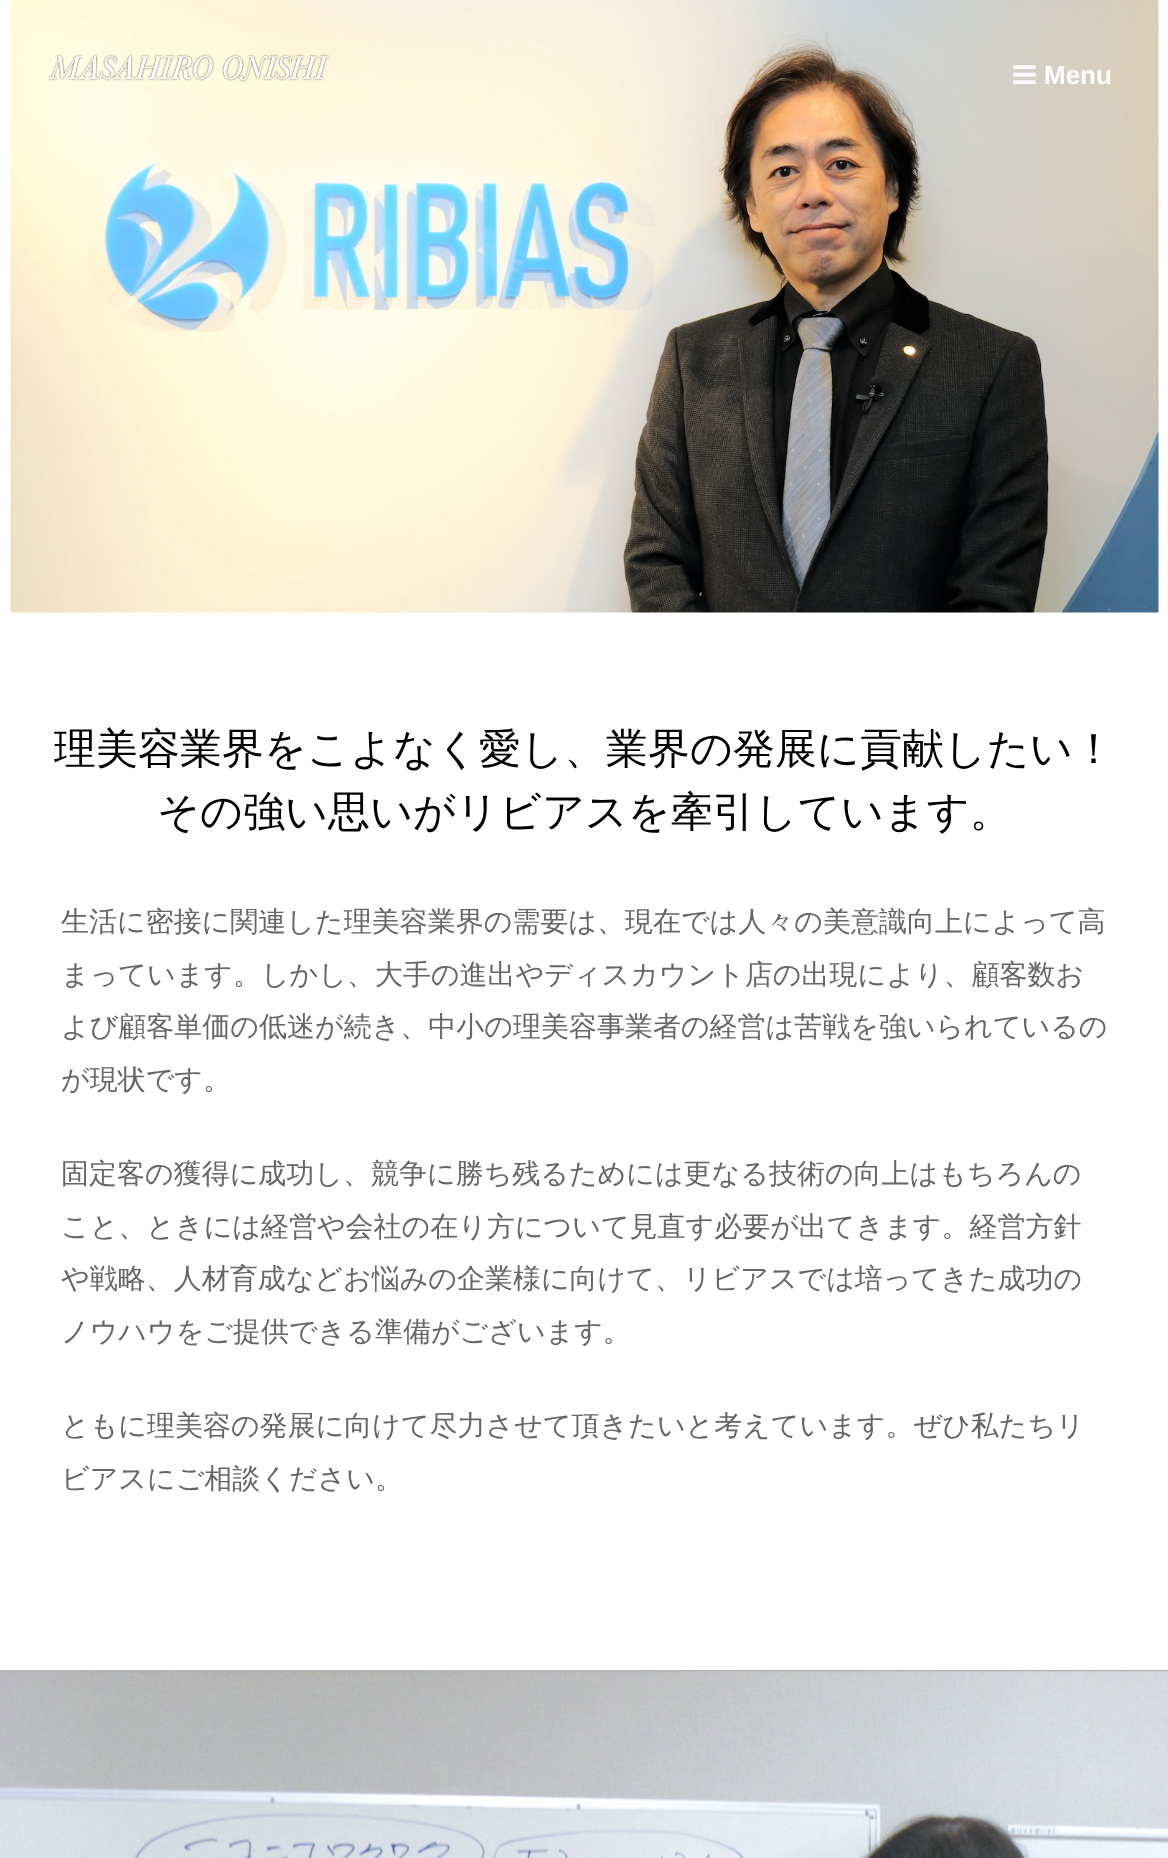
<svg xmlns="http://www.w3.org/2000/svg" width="1168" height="1858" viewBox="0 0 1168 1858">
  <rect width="100%" height="100%" fill="#ffffff"/>
  <image x="10" y="0" width="1149" height="613" href="img3.png"/>
  <image x="47" y="54" width="283" height="28" href="img1.png"/>
  <image x="1013" y="65" width="23" height="19" href="img2.png"/>
  <text x="1044" y="84" font-family="Liberation Sans" font-size="26" font-weight="bold" fill="#ffffff">Menu</text>
  <rect x="0" y="1670" width="1168" height="2" fill="#b3b3b3"/>
  <text x="54" y="763" font-family="WenQuanYi Zen Hei" font-size="42" font-weight="500" fill="#000000">理美容業界をこよなく愛し、業界の発展に貢献したい！</text>
  <text x="157" y="826" font-family="WenQuanYi Zen Hei" font-size="42" font-weight="500" fill="#000000">その強い思いがリビアスを牽引しています。</text>
  <text x="61" y="931" font-family="WenQuanYi Zen Hei" font-size="28" font-weight="500" fill="#666666">生活に密接に関連した理美容業界の需要は、現在では人々の美意識向上によって高</text>
  <text x="61" y="984" font-family="WenQuanYi Zen Hei" font-size="28" font-weight="500" fill="#666666">まっています。しかし、大手の進出やディスカウント店の出現により、顧客数お</text>
  <text x="61" y="1036" font-family="WenQuanYi Zen Hei" font-size="28" font-weight="500" fill="#666666">よび顧客単価の低迷が続き、中小の理美容事業者の経営は苦戦を強いられているの</text>
  <text x="61" y="1089" font-family="WenQuanYi Zen Hei" font-size="28" font-weight="500" fill="#666666">が現状です。</text>
  <text x="61" y="1183" font-family="WenQuanYi Zen Hei" font-size="28" font-weight="500" fill="#666666">固定客の獲得に成功し、競争に勝ち残るためには更なる技術の向上はもちろんの</text>
  <text x="61" y="1236" font-family="WenQuanYi Zen Hei" font-size="28" font-weight="500" fill="#666666">こと、ときには経営や会社の在り方について見直す必要が出てきます。経営方針</text>
  <text x="61" y="1288" font-family="WenQuanYi Zen Hei" font-size="28" font-weight="500" fill="#666666">や戦略、人材育成などお悩みの企業様に向けて、リビアスでは培ってきた成功の</text>
  <text x="61" y="1341" font-family="WenQuanYi Zen Hei" font-size="28" font-weight="500" fill="#666666">ノウハウをご提供できる準備がございます。</text>
  <text x="61" y="1435" font-family="WenQuanYi Zen Hei" font-size="28" font-weight="500" fill="#666666">ともに理美容の発展に向けて尽力させて頂きたいと考えています。ぜひ私たちリ</text>
  <text x="61" y="1488" font-family="WenQuanYi Zen Hei" font-size="28" font-weight="500" fill="#666666">ビアスにご相談ください。</text>
  <image x="0" y="1671" width="1168" height="187" href="img4.png"/>
</svg>
